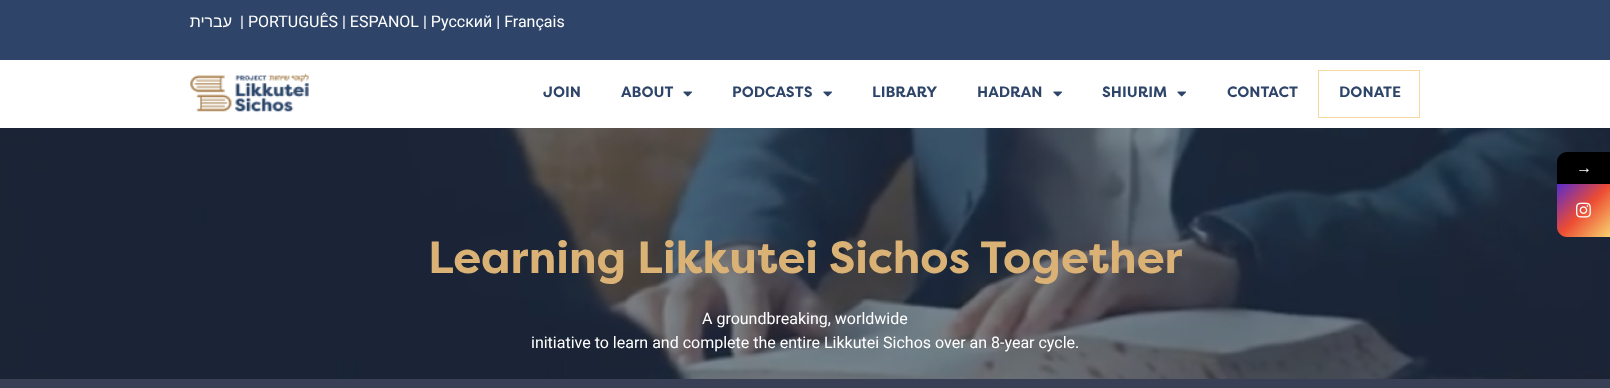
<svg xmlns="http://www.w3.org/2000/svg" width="1610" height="388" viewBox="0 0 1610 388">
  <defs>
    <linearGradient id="g1" gradientUnits="userSpaceOnUse" x1="1557" y1="184" x2="1610" y2="237"><stop offset="0" stop-color="#582bcd"/><stop offset="0.5" stop-color="#ed4c33"/><stop offset="1" stop-color="#f7d36f"/></linearGradient>
  </defs>
  <rect width="100%" height="100%" fill="#ffffff"/>
  <rect x="0" y="0" width="1610" height="60" fill="#2e4569"/>
  <text x="232" y="27" font-family="Liberation Sans" font-size="16" direction="rtl" fill="#ffffff">עברית</text>
  <text x="240" y="27" font-family="Roboto" font-size="16" fill="#ffffff">| PORTUGUÊS | ESPANOL | Русский | Français</text>
  <image x="190" y="73" width="119" height="40" href="img1.png"/>
  <text x="543" y="97" font-family="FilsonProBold" font-size="15" font-weight="bold" fill="#2e4569">JOIN</text>
  <text x="621" y="97" font-family="FilsonProBold" font-size="15" font-weight="bold" fill="#2e4569">ABOUT</text>
  <image x="683" y="91" width="9" height="6" href="img2.png"/>
  <text x="732" y="97" font-family="FilsonProBold" font-size="15" font-weight="bold" fill="#2e4569">PODCASTS</text>
  <image x="823" y="91" width="9" height="6" href="img2.png"/>
  <text x="872" y="97" font-family="FilsonProBold" font-size="15" font-weight="bold" fill="#2e4569">LIBRARY</text>
  <text x="977" y="97" font-family="FilsonProBold" font-size="15" font-weight="bold" fill="#2e4569">HADRAN</text>
  <image x="1053" y="91" width="9" height="6" href="img2.png"/>
  <text x="1102" y="97" font-family="FilsonProBold" font-size="15" font-weight="bold" fill="#2e4569">SHIURIM</text>
  <image x="1177" y="91" width="9" height="6" href="img2.png"/>
  <text x="1227" y="97" font-family="FilsonProBold" font-size="15" font-weight="bold" fill="#2e4569">CONTACT</text>
  <rect x="1318.5" y="70.5" width="101" height="47" fill="none" stroke="#f7d9a0"/>
  <text x="1339" y="97" font-family="FilsonProBold" font-size="15" font-weight="bold" fill="#2e4569">DONATE</text>
  <image x="0" y="128" width="1610" height="251" href="img3.png"/>
  <text x="428" y="273" font-family="FilsonProBold" font-size="45" font-weight="bold" fill="#dbb275">Learning Likkutei Sichos Together</text>
  <text x="702" y="324" font-family="Roboto" font-size="16" fill="#ffffff">A groundbreaking, worldwide</text>
  <text x="531" y="348" font-family="Roboto" font-size="16" fill="#ffffff">initiative to learn and complete the entire Likkutei Sichos over an 8-year cycle.</text>
  <path d="M1567 152H1610V184H1557V162C1557 156.5 1561.5 152 1567 152Z" fill="#000000"/>
  <text x="1576" y="173" font-family="Liberation Serif" font-size="16" fill="#ffffff">→</text>
  <path d="M1557 184H1610V237H1567C1561.5 237 1557 232.5 1557 227Z" fill="url(#g1)"/>
  <image x="1576" y="202" width="15" height="16" href="img4.png"/>
  <rect x="0" y="379" width="1610" height="9" fill="#393f55"/>
</svg>
